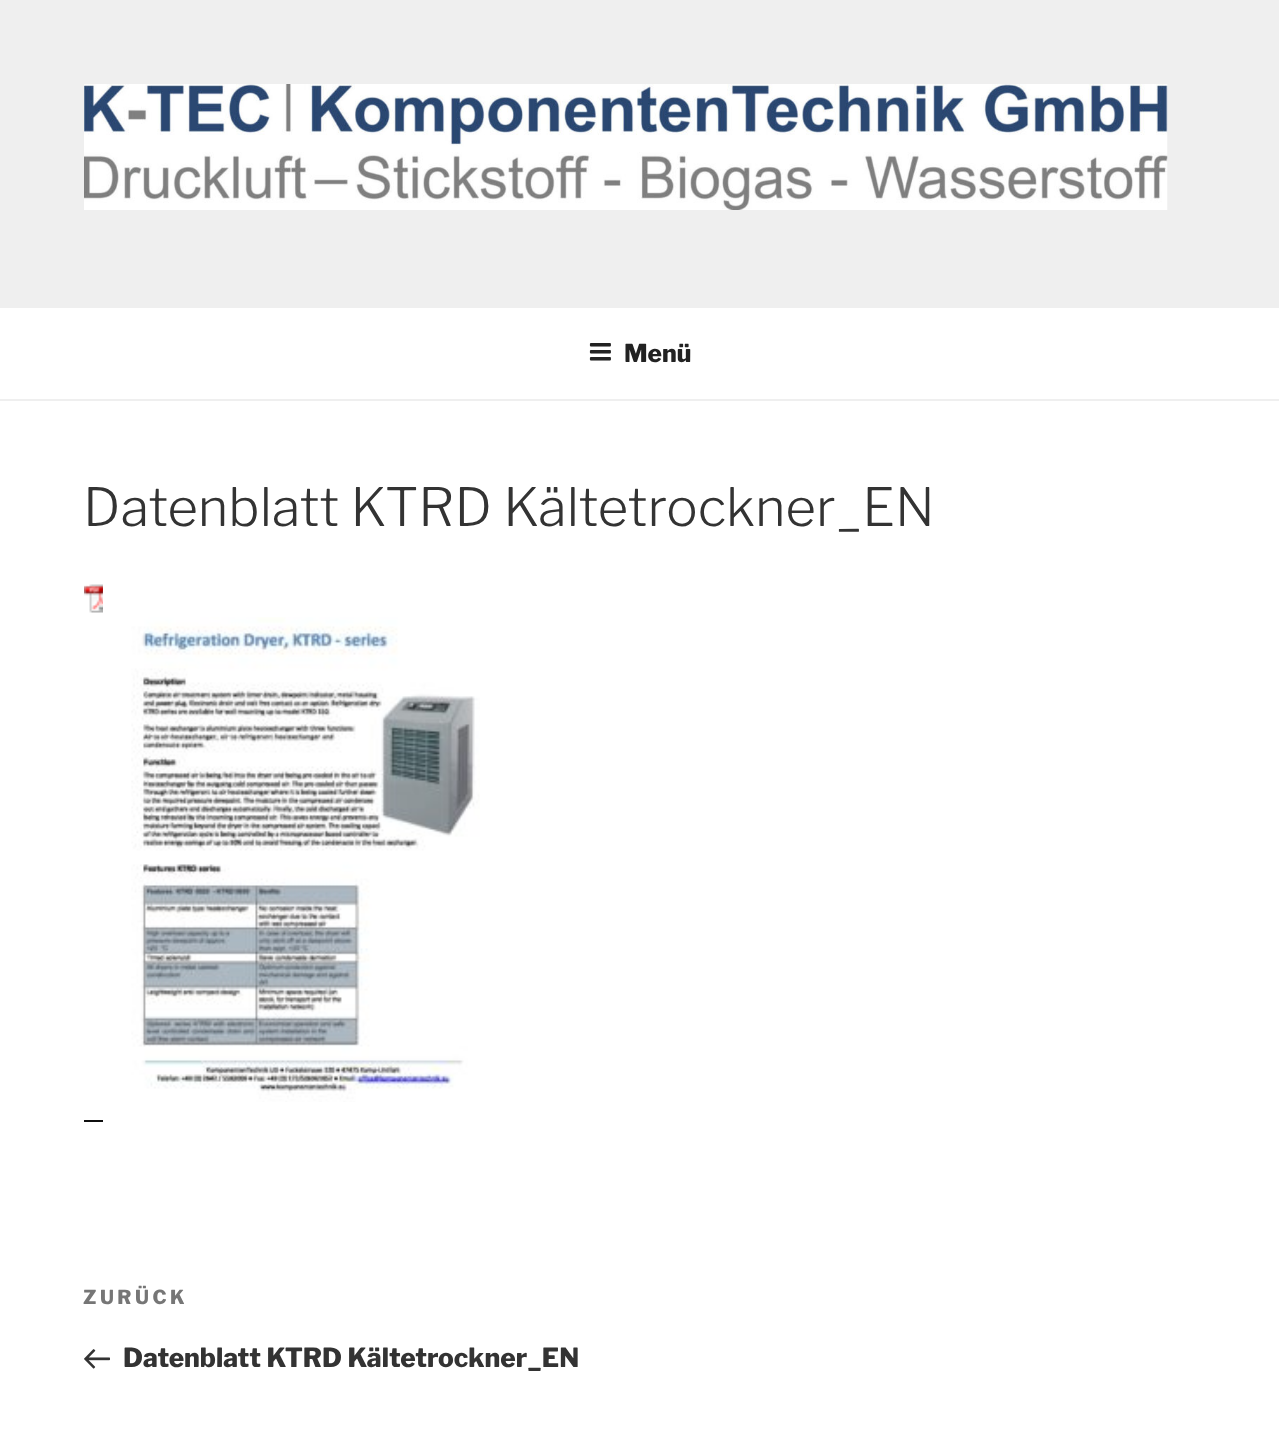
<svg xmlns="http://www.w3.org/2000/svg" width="1279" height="1439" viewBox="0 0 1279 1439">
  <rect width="100%" height="100%" fill="#efefef"/>
  <image x="84" y="84" width="1084" height="126" href="img1.png"/>
  <rect x="0" y="308" width="1279" height="91" fill="#ffffff"/>
  <image x="589" y="343" width="22" height="18" href="img2.png"/>
  <text x="624" y="362" font-family="Libre Franklin" font-size="24.5" font-weight="800" fill="#222222">Menü</text>
  <rect x="0" y="401" width="1279" height="1038" fill="#ffffff"/>
  <text x="83" y="526" font-family="Libre Franklin" font-size="52.5" font-weight="100" fill="#333333">Datenblatt KTRD Kältetrockner_EN</text>
  <image x="84" y="584" width="19" height="29" href="img3.png"/>
  <rect x="84" y="1120" width="19" height="2" fill="#0f0f0f"/>
  <image x="131" y="617" width="349" height="485" href="img4.png"/>
  <text x="83" y="1304" font-family="Libre Franklin" font-size="19.25" font-weight="800" letter-spacing="3.5" fill="#767676">ZURÜCK</text>
  <image x="84" y="1349" width="26" height="20" href="img5.png"/>
  <text x="123" y="1367" font-family="Libre Franklin" font-size="26.25" font-weight="800" fill="#333333">Datenblatt KTRD Kältetrockner_EN</text>
</svg>
